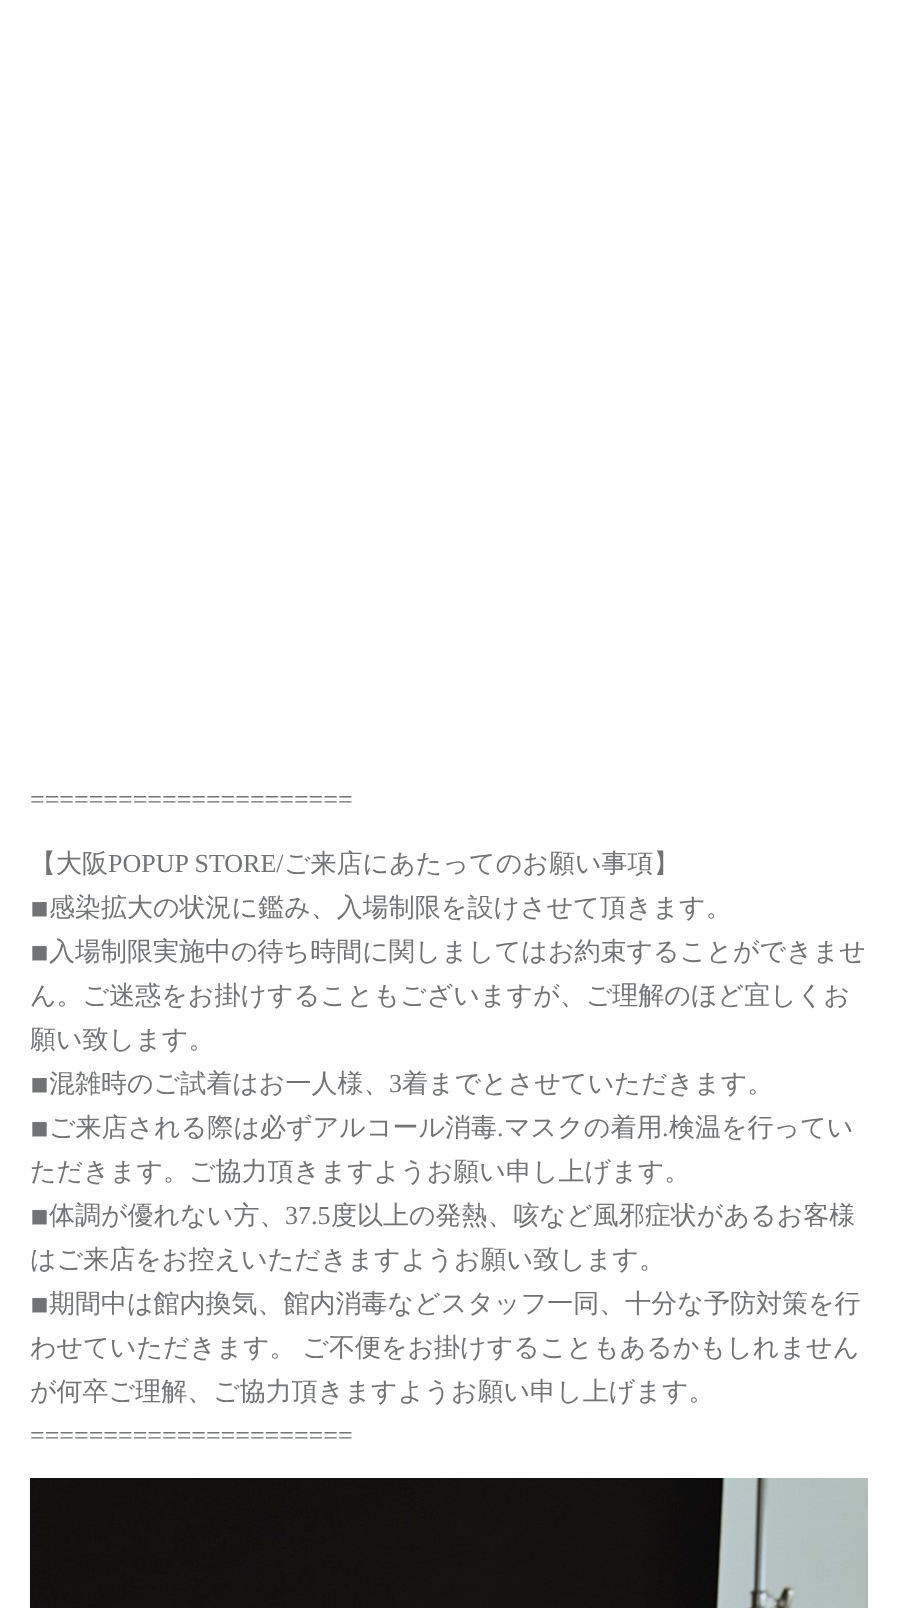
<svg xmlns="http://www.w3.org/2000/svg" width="897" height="1608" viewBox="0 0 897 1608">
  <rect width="100%" height="100%" fill="#ffffff"/>
  <text x="30" y="808" font-family="Liberation Serif" font-size="26" fill="#717375">======================</text>
  <text x="30" y="872" font-family="WenQuanYi Zen Hei" font-size="26" font-weight="500" fill="#717375">【大阪</text>
  <text x="108" y="872" font-family="Liberation Serif" font-size="26" fill="#717375">POPUP STORE/</text>
  <text x="284" y="872" font-family="WenQuanYi Zen Hei" font-size="26" font-weight="500" fill="#717375">ご来店にあたってのお願い事項】</text>
  <text x="30" y="916" font-family="DejaVu Sans" font-size="26" fill="#717375">◾︎</text>
  <text x="49" y="916" font-family="WenQuanYi Zen Hei" font-size="26" font-weight="500" fill="#717375">感染拡大の状況に鑑み、入場制限を設けさせて頂きます。</text>
  <text x="30" y="960" font-family="DejaVu Sans" font-size="26" fill="#717375">◾︎</text>
  <text x="49" y="960" font-family="WenQuanYi Zen Hei" font-size="26" font-weight="500" fill="#717375">入場制限実施中の待ち時間に関しましてはお約束することができませ</text>
  <text x="30" y="1004" font-family="WenQuanYi Zen Hei" font-size="26" font-weight="500" fill="#717375">ん。ご迷惑をお掛けすることもございますが、ご理解のほど宜しくお</text>
  <text x="30" y="1048" font-family="WenQuanYi Zen Hei" font-size="26" font-weight="500" fill="#717375">願い致します。</text>
  <text x="30" y="1092" font-family="DejaVu Sans" font-size="26" fill="#717375">◾︎</text>
  <text x="49" y="1092" font-family="WenQuanYi Zen Hei" font-size="26" font-weight="500" fill="#717375">混雑時のご試着はお一人様、</text>
  <text x="389" y="1092" font-family="Liberation Serif" font-size="26" fill="#717375">3</text>
  <text x="402" y="1092" font-family="WenQuanYi Zen Hei" font-size="26" font-weight="500" fill="#717375">着までとさせていただきます。</text>
  <text x="30" y="1136" font-family="DejaVu Sans" font-size="26" fill="#717375">◾︎</text>
  <text x="49" y="1136" font-family="WenQuanYi Zen Hei" font-size="26" font-weight="500" fill="#717375">ご来店される際は必ずアルコール消毒</text>
  <text x="497" y="1136" font-family="Liberation Serif" font-size="26" fill="#717375">.</text>
  <text x="504" y="1136" font-family="WenQuanYi Zen Hei" font-size="26" font-weight="500" fill="#717375">マスクの着用</text>
  <text x="662" y="1136" font-family="Liberation Serif" font-size="26" fill="#717375">.</text>
  <text x="669" y="1136" font-family="WenQuanYi Zen Hei" font-size="26" font-weight="500" fill="#717375">検温を行ってい</text>
  <text x="30" y="1180" font-family="WenQuanYi Zen Hei" font-size="26" font-weight="500" fill="#717375">ただきます。ご協力頂きますようお願い申し上げます。</text>
  <text x="30" y="1224" font-family="DejaVu Sans" font-size="26" fill="#717375">◾︎</text>
  <text x="49" y="1224" font-family="WenQuanYi Zen Hei" font-size="26" font-weight="500" fill="#717375">体調が優れない方、</text>
  <text x="285" y="1224" font-family="Liberation Serif" font-size="26" fill="#717375">37.5</text>
  <text x="331" y="1224" font-family="WenQuanYi Zen Hei" font-size="26" font-weight="500" fill="#717375">度以上の発熱、咳など風邪症状があるお客様</text>
  <text x="30" y="1268" font-family="WenQuanYi Zen Hei" font-size="26" font-weight="500" fill="#717375">はご来店をお控えいただきますようお願い致します。</text>
  <text x="30" y="1312" font-family="DejaVu Sans" font-size="26" fill="#717375">◾︎</text>
  <text x="49" y="1312" font-family="WenQuanYi Zen Hei" font-size="26" font-weight="500" fill="#717375">期間中は館内換気、館内消毒などスタッフ一同、十分な予防対策を行</text>
  <text x="30" y="1356" word-spacing="-1" font-family="WenQuanYi Zen Hei" font-size="26" font-weight="500" fill="#717375">わせていただきます。 ご不便をお掛けすることもあるかもしれません</text>
  <text x="30" y="1400" font-family="WenQuanYi Zen Hei" font-size="26" font-weight="500" fill="#717375">が何卒ご理解、ご協力頂きますようお願い申し上げます。</text>
  <text x="30" y="1444" font-family="Liberation Serif" font-size="26" fill="#717375">======================</text>
  <image x="30" y="1478" width="838" height="130" href="img1.png"/>
</svg>
